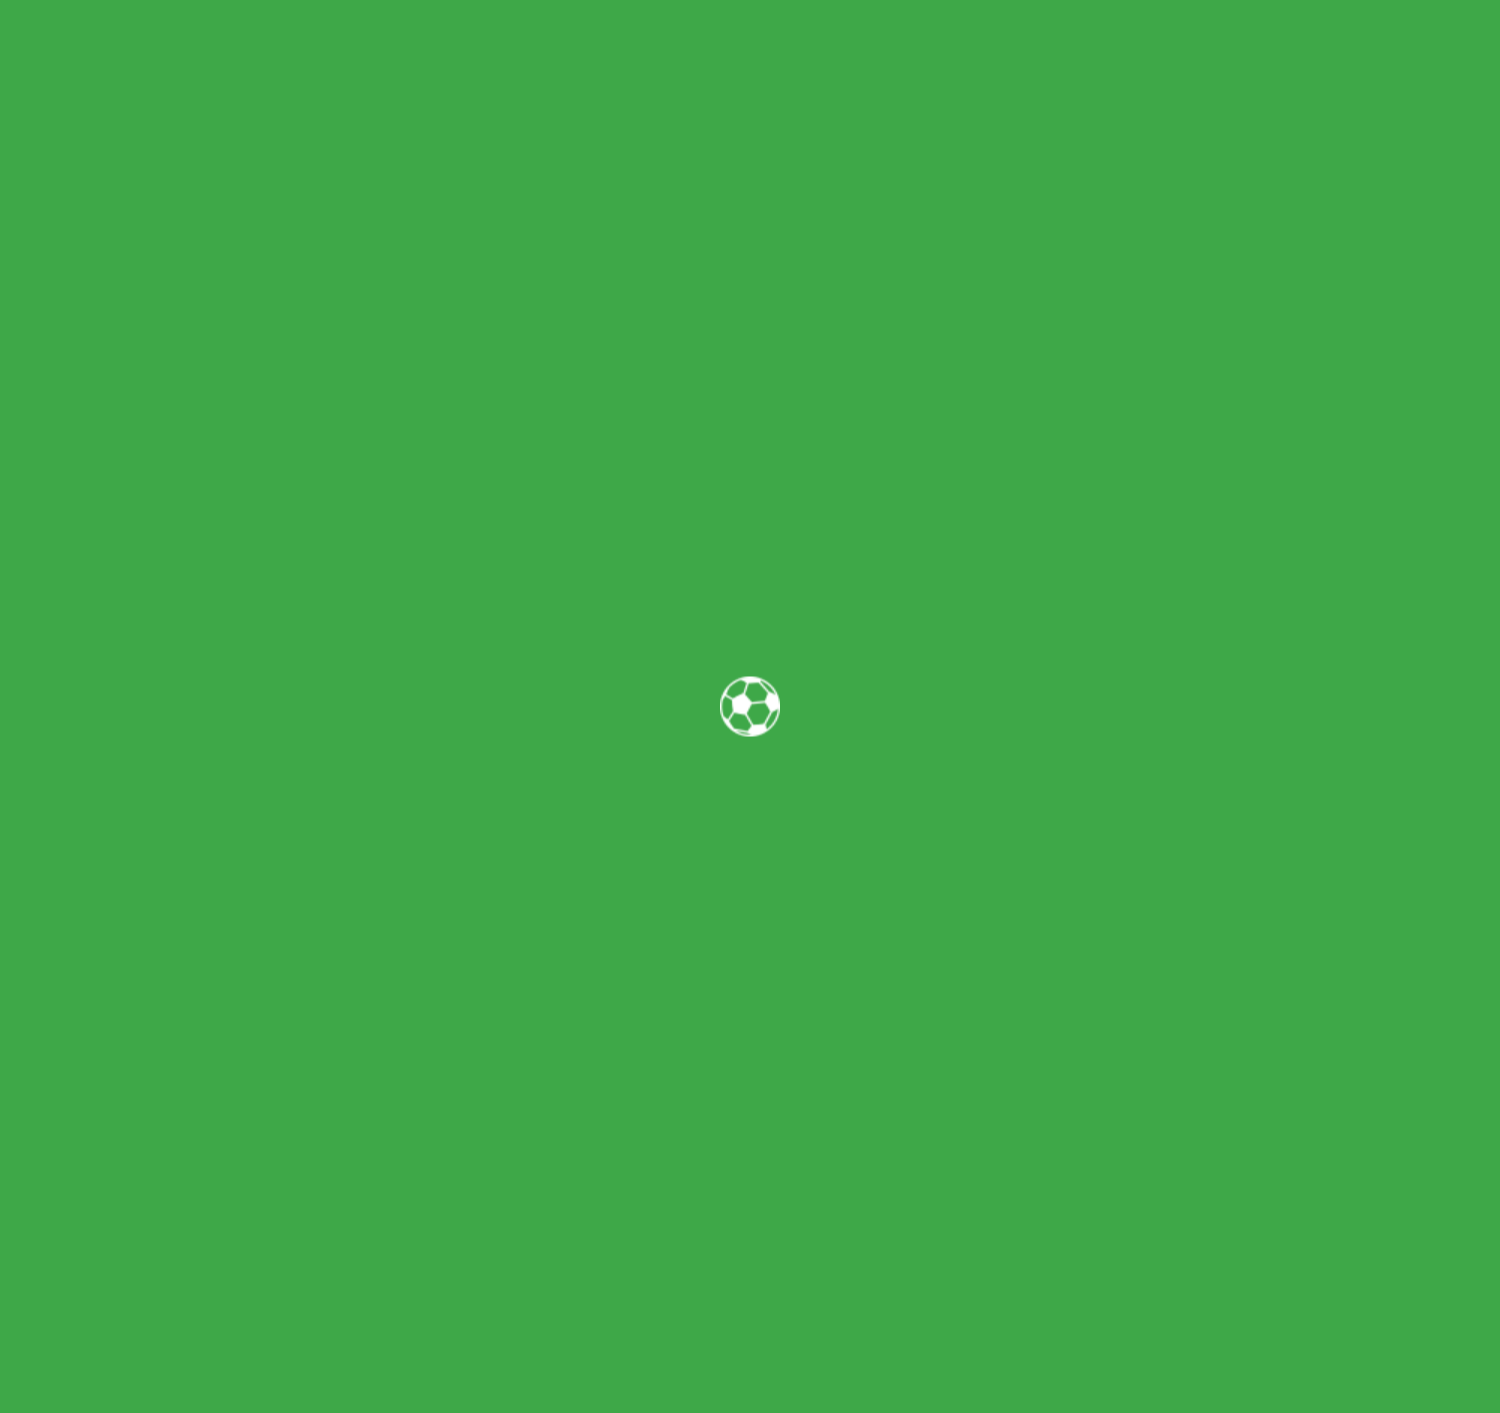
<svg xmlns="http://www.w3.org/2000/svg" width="1500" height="1413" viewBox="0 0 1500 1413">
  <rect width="100%" height="100%" fill="#3ea848"/>
  <image x="720" y="676" width="60" height="61" href="img1.png"/>
</svg>
